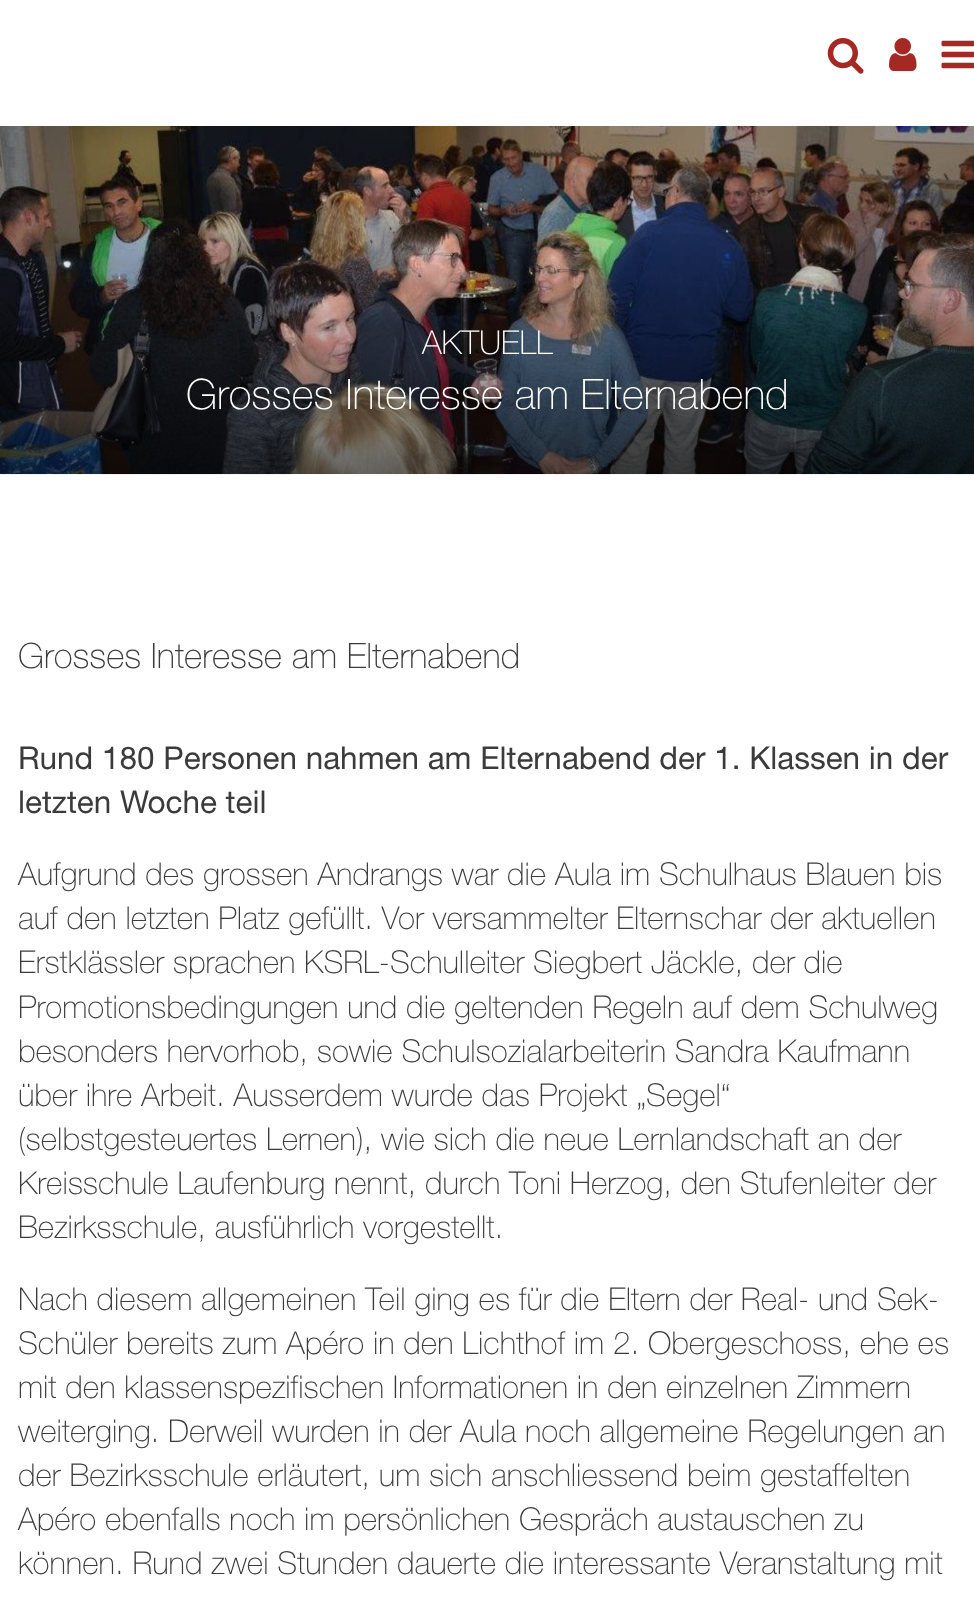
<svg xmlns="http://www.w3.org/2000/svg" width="974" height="1602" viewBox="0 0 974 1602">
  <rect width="100%" height="100%" fill="#ffffff"/>
  <image x="827" y="38" width="37" height="36" href="img1.png"/>
  <image x="889" y="38" width="28" height="33" href="img2.png"/>
  <image x="941" y="40" width="33" height="29" href="img3.png"/>
  <image x="0" y="126" width="974" height="349" href="img4.png"/>
  <text x="422" y="354" font-family="'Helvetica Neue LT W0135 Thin'" font-size="33" font-weight="100" fill="#ffffff">AKTUELL</text>
  <text x="186" y="409" font-family="'Helvetica Neue LT W0135 Thin'" font-size="42" font-weight="100" fill="#ffffff">Grosses Interesse am Elternabend</text>
  <text x="18" y="668" font-family="'Helvetica Neue LT W0135 Thin'" font-size="35" font-weight="100" fill="#3b3b3b">Grosses Interesse am Elternabend</text>
  <text x="18" y="769" font-family="'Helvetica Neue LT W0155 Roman'" font-size="31.5" fill="#3b3b3b">Rund 180 Personen nahmen am Elternabend der 1. Klassen in der</text>
  <text x="18" y="813" font-family="'Helvetica Neue LT W0155 Roman'" font-size="31.5" fill="#3b3b3b">letzten Woche teil</text>
  <text x="18" y="885" font-family="'Helvetica Neue LT W0135 Thin'" font-size="31.5" font-weight="100" fill="#3b3b3b">Aufgrund des grossen Andrangs war die Aula im Schulhaus Blauen bis</text>
  <text x="18" y="929" font-family="'Helvetica Neue LT W0135 Thin'" font-size="31.5" font-weight="100" fill="#3b3b3b">auf den letzten Platz gefüllt. Vor versammelter Elternschar der aktuellen</text>
  <text x="18" y="973" font-family="'Helvetica Neue LT W0135 Thin'" font-size="31.5" font-weight="100" fill="#3b3b3b">Erstklässler sprachen KSRL-Schulleiter Siegbert Jäckle, der die</text>
  <text x="18" y="1018" font-family="'Helvetica Neue LT W0135 Thin'" font-size="31.5" font-weight="100" fill="#3b3b3b">Promotionsbedingungen und die geltenden Regeln auf dem Schulweg</text>
  <text x="18" y="1062" font-family="'Helvetica Neue LT W0135 Thin'" font-size="31.5" font-weight="100" fill="#3b3b3b">besonders hervorhob, sowie Schulsozialarbeiterin Sandra Kaufmann</text>
  <text x="18" y="1106" font-family="'Helvetica Neue LT W0135 Thin'" font-size="31.5" font-weight="100" fill="#3b3b3b">über ihre Arbeit. Ausserdem wurde das Projekt „Segel“</text>
  <text x="18" y="1150" font-family="'Helvetica Neue LT W0135 Thin'" font-size="31.5" font-weight="100" fill="#3b3b3b">(selbstgesteuertes Lernen), wie sich die neue Lernlandschaft an der</text>
  <text x="18" y="1194" font-family="'Helvetica Neue LT W0135 Thin'" font-size="31.5" font-weight="100" fill="#3b3b3b">Kreisschule Laufenburg nennt, durch Toni Herzog, den Stufenleiter der</text>
  <text x="18" y="1238" font-family="'Helvetica Neue LT W0135 Thin'" font-size="31.5" font-weight="100" fill="#3b3b3b">Bezirksschule, ausführlich vorgestellt.</text>
  <text x="18" y="1310" font-family="'Helvetica Neue LT W0135 Thin'" font-size="31.5" font-weight="100" fill="#3b3b3b">Nach diesem allgemeinen Teil ging es für die Eltern der Real- und Sek-</text>
  <text x="18" y="1354" font-family="'Helvetica Neue LT W0135 Thin'" font-size="31.5" font-weight="100" fill="#3b3b3b">Schüler bereits zum Apéro in den Lichthof im 2. Obergeschoss, ehe es</text>
  <text x="18" y="1398" font-family="'Helvetica Neue LT W0135 Thin'" font-size="31.5" font-weight="100" fill="#3b3b3b">mit den klassenspezifischen Informationen in den einzelnen Zimmern</text>
  <text x="18" y="1442" font-family="'Helvetica Neue LT W0135 Thin'" font-size="31.5" font-weight="100" fill="#3b3b3b">weiterging. Derweil wurden in der Aula noch allgemeine Regelungen an</text>
  <text x="18" y="1486" font-family="'Helvetica Neue LT W0135 Thin'" font-size="31.5" font-weight="100" fill="#3b3b3b">der Bezirksschule erläutert, um sich anschliessend beim gestaffelten</text>
  <text x="18" y="1530" font-family="'Helvetica Neue LT W0135 Thin'" font-size="31.5" font-weight="100" fill="#3b3b3b">Apéro ebenfalls noch im persönlichen Gespräch austauschen zu</text>
  <text x="18" y="1574" font-family="'Helvetica Neue LT W0135 Thin'" font-size="31.5" font-weight="100" fill="#3b3b3b">können. Rund zwei Stunden dauerte die interessante Veranstaltung mit</text>
</svg>
